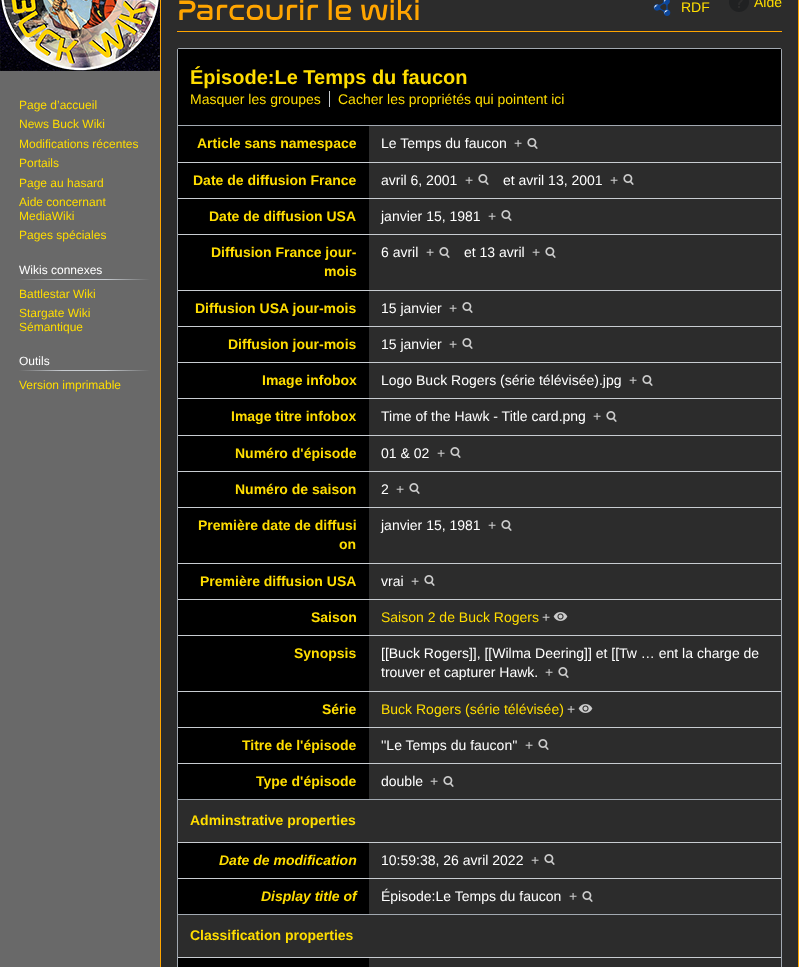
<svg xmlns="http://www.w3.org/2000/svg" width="799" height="967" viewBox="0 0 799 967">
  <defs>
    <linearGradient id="g1" gradientUnits="userSpaceOnUse" x1="19" y1="280" x2="150" y2="280"><stop offset="0" stop-color="#696969"/><stop offset="0.33" stop-color="#c8ccd1"/><stop offset="0.66" stop-color="#c8ccd1"/><stop offset="1" stop-color="#696969"/></linearGradient>
    <linearGradient id="g2" gradientUnits="userSpaceOnUse" x1="19" y1="371" x2="150" y2="371"><stop offset="0" stop-color="#696969"/><stop offset="0.33" stop-color="#c8ccd1"/><stop offset="0.66" stop-color="#c8ccd1"/><stop offset="1" stop-color="#696969"/></linearGradient>
  </defs>
  <rect width="100%" height="100%" fill="#696969"/>
  <image x="0" y="0" width="160" height="71" href="img1.png"/>
  <text x="19" y="109" font-family="Liberation Sans" font-size="12" fill="#ffdd00">Page d’accueil</text>
  <text x="19" y="128" font-family="Liberation Sans" font-size="12" fill="#ffdd00">News Buck Wiki</text>
  <text x="19" y="148" font-family="Liberation Sans" font-size="12" fill="#ffdd00">Modifications récentes</text>
  <text x="19" y="167" font-family="Liberation Sans" font-size="12" fill="#ffdd00">Portails</text>
  <text x="19" y="187" font-family="Liberation Sans" font-size="12" fill="#ffdd00">Page au hasard</text>
  <text x="19" y="206" font-family="Liberation Sans" font-size="12" fill="#ffdd00">Aide concernant</text>
  <text x="19" y="220" font-family="Liberation Sans" font-size="12" fill="#ffdd00">MediaWiki</text>
  <text x="19" y="239" font-family="Liberation Sans" font-size="12" fill="#ffdd00">Pages spéciales</text>
  <rect x="19" y="279" width="131" height="1" fill="url(#g1)"/>
  <text x="19" y="274" font-family="Liberation Sans" font-size="12" fill="#ffffff">Wikis connexes</text>
  <text x="19" y="298" font-family="Liberation Sans" font-size="12" fill="#ffdd00">Battlestar Wiki</text>
  <text x="19" y="317" font-family="Liberation Sans" font-size="12" fill="#ffdd00">Stargate Wiki</text>
  <text x="19" y="331" font-family="Liberation Sans" font-size="12" fill="#ffdd00">Sémantique</text>
  <rect x="19" y="370" width="131" height="1" fill="url(#g2)"/>
  <text x="19" y="365" font-family="Liberation Sans" font-size="12" fill="#ffffff">Outils</text>
  <text x="19" y="389" font-family="Liberation Sans" font-size="12" fill="#ffdd00">Version imprimable</text>
  <rect x="160.5" y="-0.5" width="638" height="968" fill="#2c2c2c" stroke="#ffa500"/>
  <rect x="177" y="31" width="605" height="1" fill="#ffa500"/>
  <text x="177" y="20" font-family="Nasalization" font-size="28.75" fill="#ffa500">Parcourir le wiki</text>
  <image x="653" y="0" width="18" height="16" href="img2.png"/>
  <text x="681" y="12" font-family="Liberation Sans" font-size="14" fill="#ffdd00">RDF</text>
  <image x="729" y="0" width="20" height="12" href="img3.png"/>
  <text x="754" y="7" font-family="Liberation Sans" font-size="14" fill="#ffdd00">Aide</text>
  <rect x="177.5" y="48.5" width="604" height="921" rx="1.5" fill="none" stroke="#a2a9b1"/>
  <rect x="178" y="49" width="603" height="76" fill="#000000"/>
  <rect x="178" y="125" width="603" height="1" fill="#a2a9b1"/>
  <text x="190" y="84" font-family="Liberation Sans" font-size="20" font-weight="bold" fill="#ffdd00">Épisode:Le Temps du faucon</text>
  <text x="190" y="104" font-family="Liberation Sans" font-size="14" fill="#ffdd00">Masquer les groupes</text>
  <text x="338" y="104" font-family="Liberation Sans" font-size="14" fill="#ffdd00">Cacher les propriétés qui pointent ici</text>
  <rect x="329" y="91" width="1" height="16" fill="#c8ccd1"/>
  <rect x="178" y="799" width="603" height="1" fill="#a2a9b1"/>
  <rect x="178" y="126" width="191" height="36" fill="#000000"/>
  <text x="197" y="148" font-family="Liberation Sans" font-size="14" font-weight="bold" fill="#ffdd00">Article sans namespace</text>
  <text x="381" y="148" font-family="Liberation Sans" font-size="14" fill="#ffffff">Le Temps du faucon</text>
  <text x="514" y="148" font-family="Liberation Sans" font-size="14" fill="#cccccc">+</text>
  <image x="527" y="138" width="11" height="11" href="img4.png"/>
  <rect x="178" y="162" width="603" height="1" fill="#c8ccd1"/>
  <rect x="178" y="163" width="191" height="35" fill="#000000"/>
  <text x="193" y="185" font-family="Liberation Sans" font-size="14" font-weight="bold" fill="#ffdd00">Date de diffusion France</text>
  <text x="381" y="185" font-family="Liberation Sans" font-size="14" fill="#ffffff">avril 6, 2001</text>
  <text x="465" y="185" font-family="Liberation Sans" font-size="14" fill="#cccccc">+</text>
  <image x="478" y="174" width="11" height="11" href="img4.png"/>
  <text x="503" y="185" font-family="Liberation Sans" font-size="14" fill="#ffffff">et avril 13, 2001</text>
  <text x="610" y="185" font-family="Liberation Sans" font-size="14" fill="#cccccc">+</text>
  <image x="623" y="174" width="11" height="11" href="img4.png"/>
  <rect x="178" y="198" width="603" height="1" fill="#c8ccd1"/>
  <rect x="178" y="199" width="191" height="35" fill="#000000"/>
  <text x="209" y="221" font-family="Liberation Sans" font-size="14" font-weight="bold" fill="#ffdd00">Date de diffusion USA</text>
  <text x="381" y="221" font-family="Liberation Sans" font-size="14" fill="#ffffff">janvier 15, 1981</text>
  <text x="488" y="221" font-family="Liberation Sans" font-size="14" fill="#cccccc">+</text>
  <image x="501" y="210" width="11" height="11" href="img4.png"/>
  <rect x="178" y="234" width="603" height="1" fill="#c8ccd1"/>
  <rect x="178" y="235" width="191" height="55" fill="#000000"/>
  <text x="211" y="257" font-family="Liberation Sans" font-size="14" font-weight="bold" fill="#ffdd00">Diffusion France jour-</text>
  <text x="324" y="276" font-family="Liberation Sans" font-size="14" font-weight="bold" fill="#ffdd00">mois</text>
  <text x="381" y="257" font-family="Liberation Sans" font-size="14" fill="#ffffff">6 avril</text>
  <text x="426" y="257" font-family="Liberation Sans" font-size="14" fill="#cccccc">+</text>
  <image x="439" y="247" width="11" height="11" href="img4.png"/>
  <text x="464" y="257" font-family="Liberation Sans" font-size="14" fill="#ffffff">et 13 avril</text>
  <text x="532" y="257" font-family="Liberation Sans" font-size="14" fill="#cccccc">+</text>
  <image x="545" y="247" width="11" height="11" href="img4.png"/>
  <rect x="178" y="290" width="603" height="1" fill="#c8ccd1"/>
  <rect x="178" y="291" width="191" height="35" fill="#000000"/>
  <text x="195" y="313" font-family="Liberation Sans" font-size="14" font-weight="bold" fill="#ffdd00">Diffusion USA jour-mois</text>
  <text x="381" y="313" font-family="Liberation Sans" font-size="14" fill="#ffffff">15 janvier</text>
  <text x="449" y="313" font-family="Liberation Sans" font-size="14" fill="#cccccc">+</text>
  <image x="462" y="302" width="11" height="11" href="img4.png"/>
  <rect x="178" y="326" width="603" height="1" fill="#c8ccd1"/>
  <rect x="178" y="327" width="191" height="35" fill="#000000"/>
  <text x="228" y="349" font-family="Liberation Sans" font-size="14" font-weight="bold" fill="#ffdd00">Diffusion jour-mois</text>
  <text x="381" y="349" font-family="Liberation Sans" font-size="14" fill="#ffffff">15 janvier</text>
  <text x="449" y="349" font-family="Liberation Sans" font-size="14" fill="#cccccc">+</text>
  <image x="462" y="338" width="11" height="11" href="img4.png"/>
  <rect x="178" y="362" width="603" height="1" fill="#c8ccd1"/>
  <rect x="178" y="363" width="191" height="35" fill="#000000"/>
  <text x="262" y="385" font-family="Liberation Sans" font-size="14" font-weight="bold" fill="#ffdd00">Image infobox</text>
  <text x="381" y="385" font-family="Liberation Sans" font-size="14" fill="#ffffff">Logo Buck Rogers (série télévisée).jpg</text>
  <text x="629" y="385" font-family="Liberation Sans" font-size="14" fill="#cccccc">+</text>
  <image x="642" y="375" width="11" height="11" href="img4.png"/>
  <rect x="178" y="398" width="603" height="1" fill="#c8ccd1"/>
  <rect x="178" y="399" width="191" height="36" fill="#000000"/>
  <text x="231" y="421" font-family="Liberation Sans" font-size="14" font-weight="bold" fill="#ffdd00">Image titre infobox</text>
  <text x="381" y="421" font-family="Liberation Sans" font-size="14" fill="#ffffff">Time of the Hawk - Title card.png</text>
  <text x="593" y="421" font-family="Liberation Sans" font-size="14" fill="#cccccc">+</text>
  <image x="606" y="411" width="11" height="11" href="img4.png"/>
  <rect x="178" y="435" width="603" height="1" fill="#c8ccd1"/>
  <rect x="178" y="436" width="191" height="35" fill="#000000"/>
  <text x="235" y="458" font-family="Liberation Sans" font-size="14" font-weight="bold" fill="#ffdd00">Numéro d'épisode</text>
  <text x="381" y="458" font-family="Liberation Sans" font-size="14" fill="#ffffff">01 &amp; 02</text>
  <text x="437" y="458" font-family="Liberation Sans" font-size="14" fill="#cccccc">+</text>
  <image x="450" y="447" width="11" height="11" href="img4.png"/>
  <rect x="178" y="471" width="603" height="1" fill="#c8ccd1"/>
  <rect x="178" y="472" width="191" height="35" fill="#000000"/>
  <text x="235" y="494" font-family="Liberation Sans" font-size="14" font-weight="bold" fill="#ffdd00">Numéro de saison</text>
  <text x="381" y="494" font-family="Liberation Sans" font-size="14" fill="#ffffff">2</text>
  <text x="396" y="494" font-family="Liberation Sans" font-size="14" fill="#cccccc">+</text>
  <image x="409" y="483" width="11" height="11" href="img4.png"/>
  <rect x="178" y="507" width="603" height="1" fill="#c8ccd1"/>
  <rect x="178" y="508" width="191" height="55" fill="#000000"/>
  <text x="198" y="530" font-family="Liberation Sans" font-size="14" font-weight="bold" fill="#ffdd00">Première date de diffusi</text>
  <text x="339" y="549" font-family="Liberation Sans" font-size="14" font-weight="bold" fill="#ffdd00">on</text>
  <text x="381" y="530" font-family="Liberation Sans" font-size="14" fill="#ffffff">janvier 15, 1981</text>
  <text x="488" y="530" font-family="Liberation Sans" font-size="14" fill="#cccccc">+</text>
  <image x="501" y="520" width="11" height="11" href="img4.png"/>
  <rect x="178" y="563" width="603" height="1" fill="#c8ccd1"/>
  <rect x="178" y="564" width="191" height="35" fill="#000000"/>
  <text x="200" y="586" font-family="Liberation Sans" font-size="14" font-weight="bold" fill="#ffdd00">Première diffusion USA</text>
  <text x="381" y="586" font-family="Liberation Sans" font-size="14" fill="#ffffff">vrai</text>
  <text x="411" y="586" font-family="Liberation Sans" font-size="14" fill="#cccccc">+</text>
  <image x="424" y="575" width="11" height="11" href="img4.png"/>
  <rect x="178" y="599" width="603" height="1" fill="#c8ccd1"/>
  <rect x="178" y="600" width="191" height="35" fill="#000000"/>
  <text x="311" y="622" font-family="Liberation Sans" font-size="14" font-weight="bold" fill="#ffdd00">Saison</text>
  <text x="381" y="622" font-family="Liberation Sans" font-size="14" fill="#ffdd00">Saison 2 de Buck Rogers</text>
  <text x="542" y="622" font-family="Liberation Sans" font-size="14" fill="#cccccc">+</text>
  <image x="553" y="612" width="15" height="9" href="img5.png"/>
  <rect x="178" y="635" width="603" height="1" fill="#c8ccd1"/>
  <rect x="178" y="636" width="191" height="55" fill="#000000"/>
  <text x="294" y="658" font-family="Liberation Sans" font-size="14" font-weight="bold" fill="#ffdd00">Synopsis</text>
  <text x="381" y="658" font-family="Liberation Sans" font-size="14" fill="#ffffff">[[Buck Rogers]], [[Wilma Deering]] et [[Tw … ent la charge de</text>
  <text x="381" y="677" font-family="Liberation Sans" font-size="14" fill="#ffffff">trouver et capturer Hawk.</text>
  <text x="545" y="677" font-family="Liberation Sans" font-size="14" fill="#cccccc">+</text>
  <image x="558" y="667" width="11" height="11" href="img4.png"/>
  <rect x="178" y="691" width="603" height="1" fill="#c8ccd1"/>
  <rect x="178" y="692" width="191" height="35" fill="#000000"/>
  <text x="322" y="714" font-family="Liberation Sans" font-size="14" font-weight="bold" fill="#ffdd00">Série</text>
  <text x="381" y="714" font-family="Liberation Sans" font-size="14" fill="#ffdd00">Buck Rogers (série télévisée)</text>
  <text x="567" y="714" font-family="Liberation Sans" font-size="14" fill="#cccccc">+</text>
  <image x="578" y="704" width="15" height="9" href="img5.png"/>
  <rect x="178" y="727" width="603" height="1" fill="#c8ccd1"/>
  <rect x="178" y="728" width="191" height="35" fill="#000000"/>
  <text x="242" y="750" font-family="Liberation Sans" font-size="14" font-weight="bold" fill="#ffdd00">Titre de l'épisode</text>
  <text x="381" y="750" font-family="Liberation Sans" font-size="14" fill="#ffffff">''Le Temps du faucon''</text>
  <text x="525" y="750" font-family="Liberation Sans" font-size="14" fill="#cccccc">+</text>
  <image x="538" y="739" width="11" height="11" href="img4.png"/>
  <rect x="178" y="763" width="603" height="1" fill="#c8ccd1"/>
  <rect x="178" y="764" width="191" height="35" fill="#000000"/>
  <text x="256" y="786" font-family="Liberation Sans" font-size="14" font-weight="bold" fill="#ffdd00">Type d'épisode</text>
  <text x="381" y="786" font-family="Liberation Sans" font-size="14" fill="#ffffff">double</text>
  <text x="430" y="786" font-family="Liberation Sans" font-size="14" fill="#cccccc">+</text>
  <image x="443" y="776" width="11" height="11" href="img4.png"/>
  <rect x="178" y="914" width="603" height="1" fill="#a2a9b1"/>
  <text x="190" y="825" font-family="Liberation Sans" font-size="14" font-weight="bold" fill="#ffdd00">Adminstrative properties</text>
  <rect x="178" y="842" width="603" height="1" fill="#c8ccd1"/>
  <rect x="178" y="843" width="191" height="35" fill="#000000"/>
  <text x="219" y="865" font-family="Liberation Sans" font-size="14" font-weight="bold" font-style="italic" fill="#ffdd00">Date de modification</text>
  <text x="381" y="865" font-family="Liberation Sans" font-size="14" fill="#ffffff">10:59:38, 26 avril 2022</text>
  <text x="531" y="865" font-family="Liberation Sans" font-size="14" fill="#cccccc">+</text>
  <image x="544" y="854" width="11" height="11" href="img4.png"/>
  <rect x="178" y="878" width="603" height="1" fill="#c8ccd1"/>
  <rect x="178" y="879" width="191" height="35" fill="#000000"/>
  <text x="261" y="901" font-family="Liberation Sans" font-size="14" font-weight="bold" font-style="italic" fill="#ffdd00">Display title of</text>
  <text x="381" y="901" font-family="Liberation Sans" font-size="14" fill="#ffffff">Épisode:Le Temps du faucon</text>
  <text x="569" y="901" font-family="Liberation Sans" font-size="14" fill="#cccccc">+</text>
  <image x="582" y="891" width="11" height="11" href="img4.png"/>
  <text x="190" y="940" font-family="Liberation Sans" font-size="14" font-weight="bold" fill="#ffdd00">Classification properties</text>
  <rect x="178" y="957" width="603" height="1" fill="#c8ccd1"/>
  <rect x="178" y="958" width="191" height="9" fill="#000000"/>
</svg>
